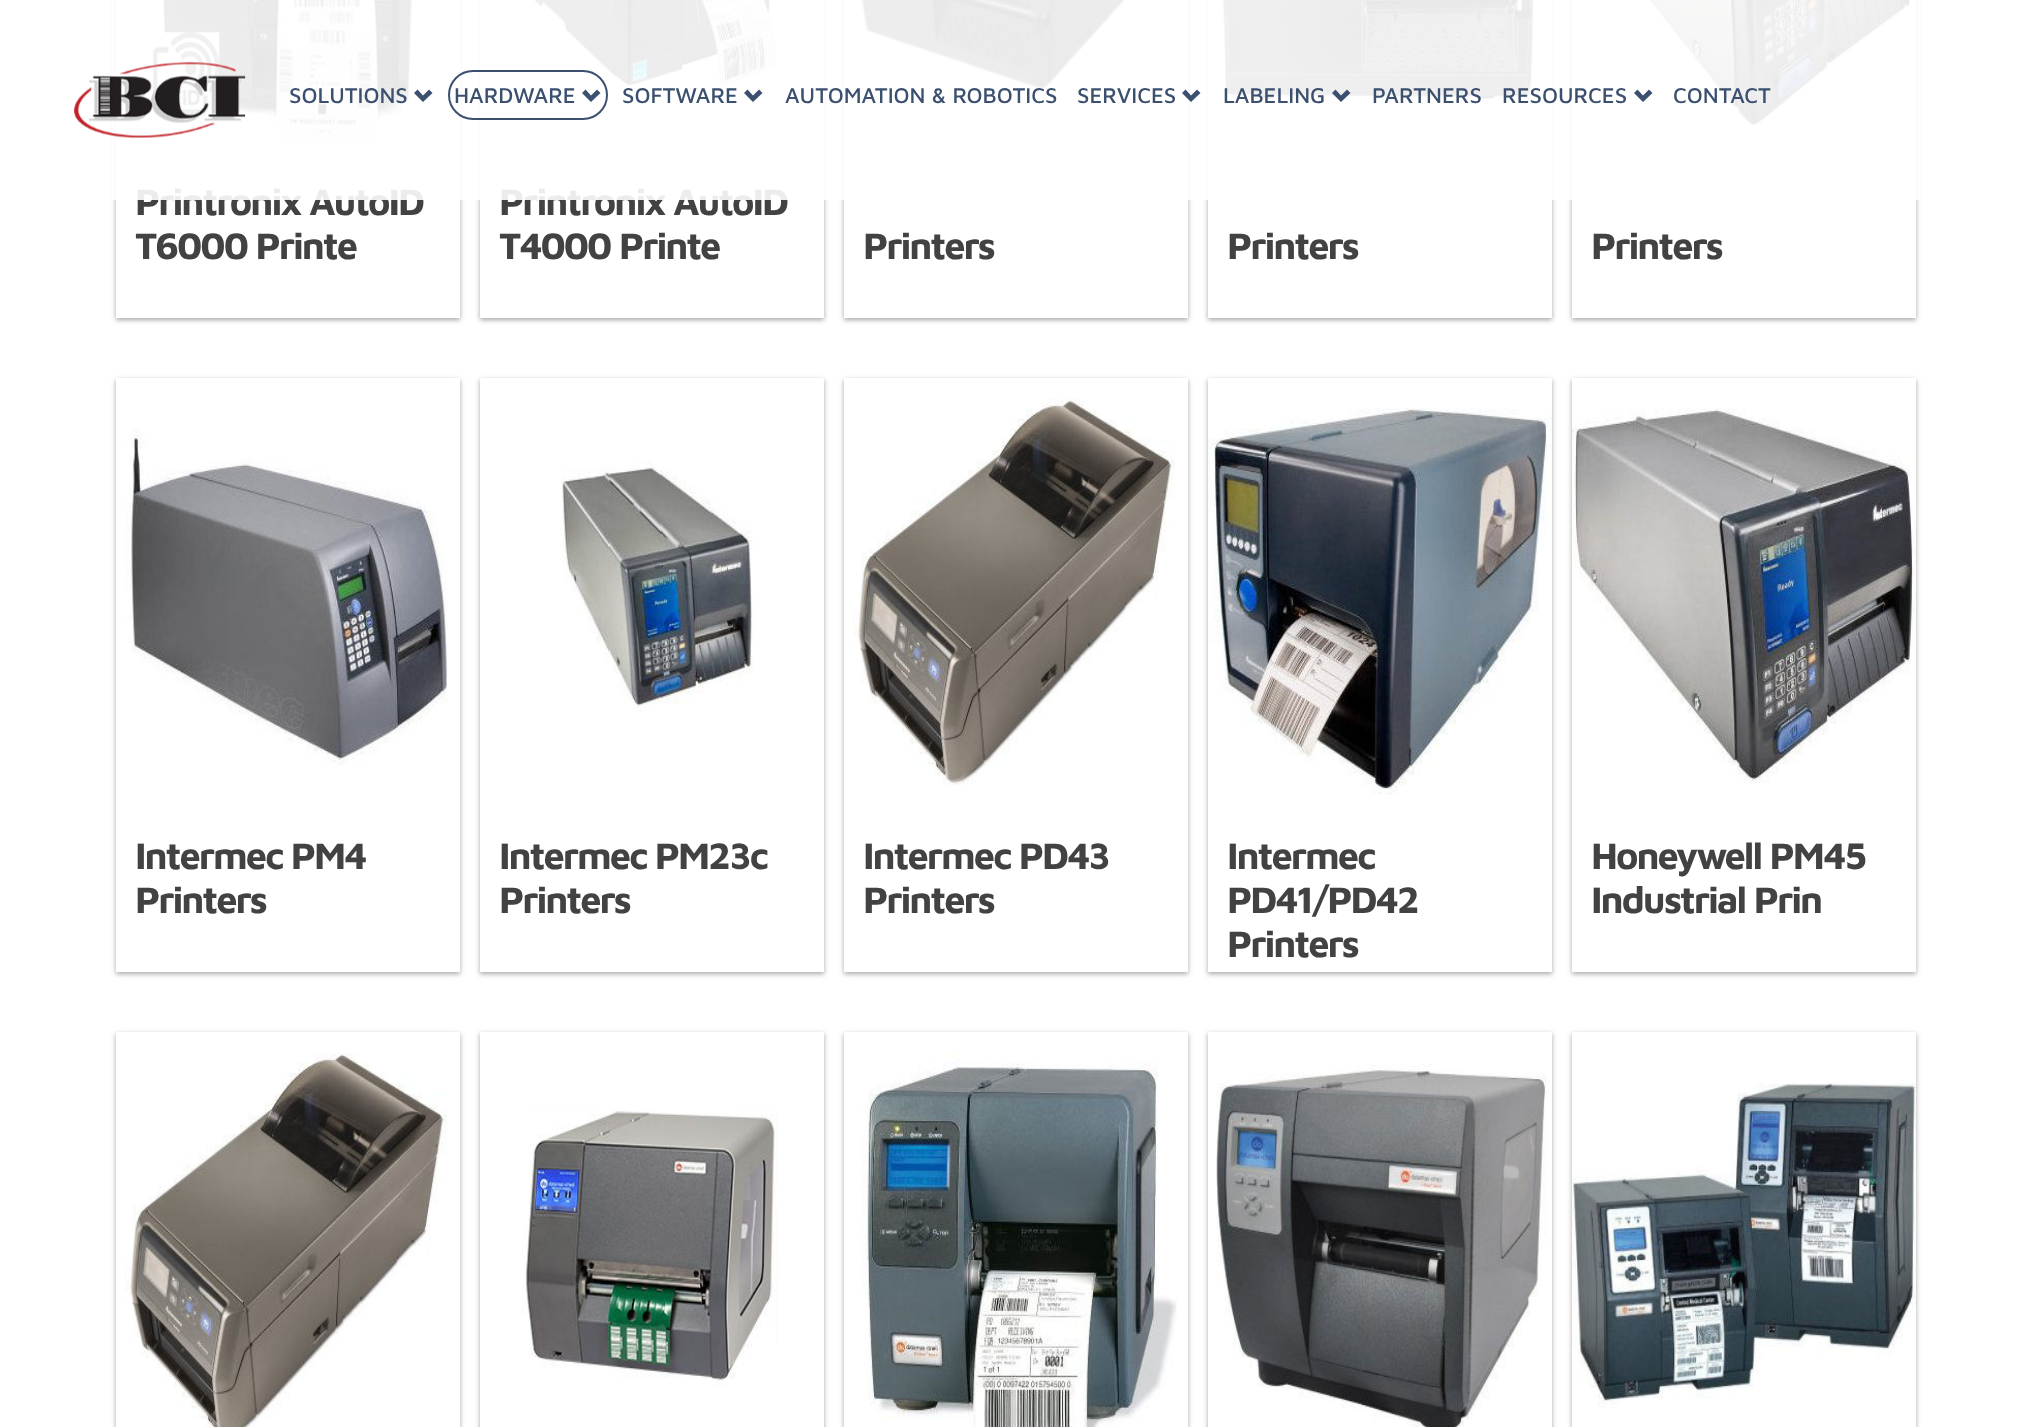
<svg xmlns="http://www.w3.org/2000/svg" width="2030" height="1427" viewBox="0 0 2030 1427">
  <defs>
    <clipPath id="clip1"><path d="M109 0H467V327H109ZM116-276H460V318H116Z" clip-rule="evenodd"/></clipPath>
    <filter id="blur1" x="-50%" y="-200%" width="200%" height="500%"><feGaussianBlur stdDeviation="2"/></filter>
    <clipPath id="clip2"><path d="M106 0H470V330H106ZM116-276H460V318H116Z" clip-rule="evenodd"/></clipPath>
    <filter id="blur2" x="-50%" y="-200%" width="200%" height="500%"><feGaussianBlur stdDeviation="3"/></filter>
    <clipPath id="clip3"><path d="M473 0H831V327H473ZM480-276H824V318H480Z" clip-rule="evenodd"/></clipPath>
    <clipPath id="clip4"><path d="M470 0H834V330H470ZM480-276H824V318H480Z" clip-rule="evenodd"/></clipPath>
    <clipPath id="clip5"><path d="M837 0H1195V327H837ZM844-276H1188V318H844Z" clip-rule="evenodd"/></clipPath>
    <clipPath id="clip6"><path d="M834 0H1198V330H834ZM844-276H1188V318H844Z" clip-rule="evenodd"/></clipPath>
    <clipPath id="clip7"><path d="M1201 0H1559V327H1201ZM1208-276H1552V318H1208Z" clip-rule="evenodd"/></clipPath>
    <clipPath id="clip8"><path d="M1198 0H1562V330H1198ZM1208-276H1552V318H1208Z" clip-rule="evenodd"/></clipPath>
    <clipPath id="clip9"><path d="M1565 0H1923V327H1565ZM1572-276H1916V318H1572Z" clip-rule="evenodd"/></clipPath>
    <clipPath id="clip10"><path d="M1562 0H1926V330H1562ZM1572-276H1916V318H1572Z" clip-rule="evenodd"/></clipPath>
    <clipPath id="clip11"><path d="M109 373H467V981H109ZM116 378H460V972H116Z" clip-rule="evenodd"/></clipPath>
    <clipPath id="clip12"><path d="M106 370H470V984H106ZM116 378H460V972H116Z" clip-rule="evenodd"/></clipPath>
    <clipPath id="clip13"><path d="M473 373H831V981H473ZM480 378H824V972H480Z" clip-rule="evenodd"/></clipPath>
    <clipPath id="clip14"><path d="M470 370H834V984H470ZM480 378H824V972H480Z" clip-rule="evenodd"/></clipPath>
    <clipPath id="clip15"><path d="M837 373H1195V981H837ZM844 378H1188V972H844Z" clip-rule="evenodd"/></clipPath>
    <clipPath id="clip16"><path d="M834 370H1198V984H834ZM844 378H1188V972H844Z" clip-rule="evenodd"/></clipPath>
    <clipPath id="clip17"><path d="M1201 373H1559V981H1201ZM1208 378H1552V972H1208Z" clip-rule="evenodd"/></clipPath>
    <clipPath id="clip18"><path d="M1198 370H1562V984H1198ZM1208 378H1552V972H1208Z" clip-rule="evenodd"/></clipPath>
    <clipPath id="clip19"><path d="M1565 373H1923V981H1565ZM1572 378H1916V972H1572Z" clip-rule="evenodd"/></clipPath>
    <clipPath id="clip20"><path d="M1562 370H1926V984H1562ZM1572 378H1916V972H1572Z" clip-rule="evenodd"/></clipPath>
    <clipPath id="clip21"><path d="M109 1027H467V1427H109ZM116 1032H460V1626H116Z" clip-rule="evenodd"/></clipPath>
    <clipPath id="clip22"><path d="M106 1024H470V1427H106ZM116 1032H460V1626H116Z" clip-rule="evenodd"/></clipPath>
    <clipPath id="clip23"><path d="M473 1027H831V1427H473ZM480 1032H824V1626H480Z" clip-rule="evenodd"/></clipPath>
    <clipPath id="clip24"><path d="M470 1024H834V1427H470ZM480 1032H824V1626H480Z" clip-rule="evenodd"/></clipPath>
    <clipPath id="clip25"><path d="M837 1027H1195V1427H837ZM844 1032H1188V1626H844Z" clip-rule="evenodd"/></clipPath>
    <clipPath id="clip26"><path d="M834 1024H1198V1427H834ZM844 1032H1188V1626H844Z" clip-rule="evenodd"/></clipPath>
    <clipPath id="clip27"><path d="M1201 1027H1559V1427H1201ZM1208 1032H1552V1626H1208Z" clip-rule="evenodd"/></clipPath>
    <clipPath id="clip28"><path d="M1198 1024H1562V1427H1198ZM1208 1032H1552V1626H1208Z" clip-rule="evenodd"/></clipPath>
    <clipPath id="clip29"><path d="M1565 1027H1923V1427H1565ZM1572 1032H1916V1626H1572Z" clip-rule="evenodd"/></clipPath>
    <clipPath id="clip30"><path d="M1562 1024H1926V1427H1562ZM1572 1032H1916V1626H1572Z" clip-rule="evenodd"/></clipPath>
  </defs>
  <rect width="100%" height="100%" fill="#ffffff"/>
  <g clip-path="url(#clip1)">
    <rect x="116" y="-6" width="344" height="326" fill="#000000" fill-opacity="0.24" filter="url(#blur1)"/>
  </g>
  <g clip-path="url(#clip2)">
    <rect x="116" y="-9" width="344" height="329" fill="#000000" fill-opacity="0.12" filter="url(#blur2)"/>
  </g>
  <image x="146" y="0" width="304" height="148" href="img2.png"/>
  <text x="135" y="215" font-family="Maven Pro" font-size="38" font-weight="bold" letter-spacing="-2" fill="#424242">Printronix AutoID</text>
  <g clip-path="url(#clip3)">
    <rect x="480" y="-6" width="344" height="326" fill="#000000" fill-opacity="0.24" filter="url(#blur1)"/>
  </g>
  <g clip-path="url(#clip4)">
    <rect x="480" y="-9" width="344" height="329" fill="#000000" fill-opacity="0.12" filter="url(#blur2)"/>
  </g>
  <image x="529" y="0" width="249" height="91" href="img3.png"/>
  <text x="499" y="215" font-family="Maven Pro" font-size="38" font-weight="bold" letter-spacing="-2" fill="#424242">Printronix AutoID</text>
  <g clip-path="url(#clip5)">
    <rect x="844" y="-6" width="344" height="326" fill="#000000" fill-opacity="0.24" filter="url(#blur1)"/>
  </g>
  <g clip-path="url(#clip6)">
    <rect x="844" y="-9" width="344" height="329" fill="#000000" fill-opacity="0.12" filter="url(#blur2)"/>
  </g>
  <image x="860" y="0" width="267" height="91" href="img4.png"/>
  <g clip-path="url(#clip7)">
    <rect x="1208" y="-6" width="344" height="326" fill="#000000" fill-opacity="0.24" filter="url(#blur1)"/>
  </g>
  <g clip-path="url(#clip8)">
    <rect x="1208" y="-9" width="344" height="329" fill="#000000" fill-opacity="0.12" filter="url(#blur2)"/>
  </g>
  <image x="1217" y="0" width="321" height="101" href="img5.png"/>
  <g clip-path="url(#clip9)">
    <rect x="1572" y="-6" width="344" height="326" fill="#000000" fill-opacity="0.24" filter="url(#blur1)"/>
  </g>
  <g clip-path="url(#clip10)">
    <rect x="1572" y="-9" width="344" height="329" fill="#000000" fill-opacity="0.12" filter="url(#blur2)"/>
  </g>
  <image x="1646" y="0" width="265" height="130" href="img6.png"/>
  <rect x="112" y="0" width="1808" height="200" fill="#ffffff" fill-opacity="0.9"/>
  <image x="74" y="62" width="172" height="76" href="img1.png"/>
  <text x="289" y="103" font-family="Maven Pro" font-size="22" font-weight="500" fill="#3b4f6f">SOLUTIONS</text>
  <path d="M432.5 93L423 102L414 93L417.5 89.5L423 95.5L429 89.5Z" fill="#3b4f6f"/>
  <rect x="449" y="71" width="158" height="48" rx="24" fill="none" stroke="#3b4f6f" stroke-width="2"/>
  <text x="454" y="103" font-family="Maven Pro" font-size="22" font-weight="500" fill="#3b4f6f">HARDWARE</text>
  <path d="M600.5 93L591 102L582 93L585.5 89.5L591 95.5L597 89.5Z" fill="#3b4f6f"/>
  <text x="622" y="103" font-family="Maven Pro" font-size="22" font-weight="500" fill="#3b4f6f">SOFTWARE</text>
  <path d="M762.5 93L753 102L744 93L747.5 89.5L753 95.5L759 89.5Z" fill="#3b4f6f"/>
  <text x="785" y="103" font-family="Maven Pro" font-size="22" font-weight="500" fill="#3b4f6f">AUTOMATION &amp; ROBOTICS</text>
  <text x="1077" y="103" font-family="Maven Pro" font-size="22" font-weight="500" fill="#3b4f6f">SERVICES</text>
  <path d="M1200.5 93L1191 102L1182 93L1185.5 89.5L1191 95.5L1197 89.5Z" fill="#3b4f6f"/>
  <text x="1223" y="103" font-family="Maven Pro" font-size="22" font-weight="500" fill="#3b4f6f">LABELING</text>
  <path d="M1350.5 93L1341 102L1332 93L1335.5 89.5L1341 95.5L1347 89.5Z" fill="#3b4f6f"/>
  <text x="1372" y="103" font-family="Maven Pro" font-size="22" font-weight="500" fill="#3b4f6f">PARTNERS</text>
  <text x="1502" y="103" font-family="Maven Pro" font-size="22" font-weight="500" fill="#3b4f6f">RESOURCES</text>
  <path d="M1652.5 93L1643 102L1634 93L1637.5 89.5L1643 95.5L1649 89.5Z" fill="#3b4f6f"/>
  <text x="1673" y="103" font-family="Maven Pro" font-size="22" font-weight="500" fill="#3b4f6f">CONTACT</text>
  <text x="135" y="259" font-family="Maven Pro" font-size="38" font-weight="bold" letter-spacing="-2" fill="#424242">T6000 Printe</text>
  <text x="499" y="259" font-family="Maven Pro" font-size="38" font-weight="bold" letter-spacing="-2" fill="#424242">T4000 Printe</text>
  <text x="863" y="259" font-family="Maven Pro" font-size="38" font-weight="bold" letter-spacing="-2" fill="#424242">Printers</text>
  <text x="1227" y="259" font-family="Maven Pro" font-size="38" font-weight="bold" letter-spacing="-2" fill="#424242">Printers</text>
  <text x="1591" y="259" font-family="Maven Pro" font-size="38" font-weight="bold" letter-spacing="-2" fill="#424242">Printers</text>
  <g clip-path="url(#clip11)">
    <rect x="116" y="380" width="344" height="594" fill="#000000" fill-opacity="0.24" filter="url(#blur1)"/>
  </g>
  <g clip-path="url(#clip12)">
    <rect x="116" y="380" width="344" height="594" fill="#000000" fill-opacity="0.12" filter="url(#blur2)"/>
  </g>
  <image x="125" y="429" width="323" height="336" href="img7.png"/>
  <text x="135" y="869" font-family="Maven Pro" font-size="38" font-weight="bold" letter-spacing="-2" fill="#424242">Intermec PM4</text>
  <text x="135" y="913" font-family="Maven Pro" font-size="38" font-weight="bold" letter-spacing="-2" fill="#424242">Printers</text>
  <g clip-path="url(#clip13)">
    <rect x="480" y="380" width="344" height="594" fill="#000000" fill-opacity="0.24" filter="url(#blur1)"/>
  </g>
  <g clip-path="url(#clip14)">
    <rect x="480" y="380" width="344" height="594" fill="#000000" fill-opacity="0.12" filter="url(#blur2)"/>
  </g>
  <image x="562" y="461" width="194" height="251" href="img8.png"/>
  <text x="499" y="869" font-family="Maven Pro" font-size="38" font-weight="bold" letter-spacing="-2" fill="#424242">Intermec PM23c</text>
  <text x="499" y="913" font-family="Maven Pro" font-size="38" font-weight="bold" letter-spacing="-2" fill="#424242">Printers</text>
  <g clip-path="url(#clip15)">
    <rect x="844" y="380" width="344" height="594" fill="#000000" fill-opacity="0.24" filter="url(#blur1)"/>
  </g>
  <g clip-path="url(#clip16)">
    <rect x="844" y="380" width="344" height="594" fill="#000000" fill-opacity="0.12" filter="url(#blur2)"/>
  </g>
  <image x="852" y="398" width="323" height="387" href="img9.png"/>
  <text x="863" y="869" font-family="Maven Pro" font-size="38" font-weight="bold" letter-spacing="-2" fill="#424242">Intermec PD43</text>
  <text x="863" y="913" font-family="Maven Pro" font-size="38" font-weight="bold" letter-spacing="-2" fill="#424242">Printers</text>
  <g clip-path="url(#clip17)">
    <rect x="1208" y="380" width="344" height="594" fill="#000000" fill-opacity="0.24" filter="url(#blur1)"/>
  </g>
  <g clip-path="url(#clip18)">
    <rect x="1208" y="380" width="344" height="594" fill="#000000" fill-opacity="0.12" filter="url(#blur2)"/>
  </g>
  <image x="1208" y="408" width="344" height="387" href="img10.png"/>
  <text x="1227" y="869" font-family="Maven Pro" font-size="38" font-weight="bold" letter-spacing="-2" fill="#424242">Intermec</text>
  <text x="1227" y="913" font-family="Maven Pro" font-size="38" font-weight="bold" letter-spacing="-2" fill="#424242">PD41/PD42</text>
  <text x="1227" y="957" font-family="Maven Pro" font-size="38" font-weight="bold" letter-spacing="-2" fill="#424242">Printers</text>
  <g clip-path="url(#clip19)">
    <rect x="1572" y="380" width="344" height="594" fill="#000000" fill-opacity="0.24" filter="url(#blur1)"/>
  </g>
  <g clip-path="url(#clip20)">
    <rect x="1572" y="380" width="344" height="594" fill="#000000" fill-opacity="0.12" filter="url(#blur2)"/>
  </g>
  <image x="1572" y="408" width="344" height="376" href="img11.png"/>
  <text x="1591" y="869" font-family="Maven Pro" font-size="38" font-weight="bold" letter-spacing="-2" fill="#424242">Honeywell PM45</text>
  <text x="1591" y="913" font-family="Maven Pro" font-size="38" font-weight="bold" letter-spacing="-2" fill="#424242">Industrial Prin</text>
  <g clip-path="url(#clip21)">
    <rect x="116" y="1034" width="344" height="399" fill="#000000" fill-opacity="0.24" filter="url(#blur1)"/>
  </g>
  <g clip-path="url(#clip22)">
    <rect x="116" y="1034" width="344" height="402" fill="#000000" fill-opacity="0.12" filter="url(#blur2)"/>
  </g>
  <image x="124" y="1052" width="323" height="375" href="img12.png"/>
  <g clip-path="url(#clip23)">
    <rect x="480" y="1034" width="344" height="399" fill="#000000" fill-opacity="0.24" filter="url(#blur1)"/>
  </g>
  <g clip-path="url(#clip24)">
    <rect x="480" y="1034" width="344" height="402" fill="#000000" fill-opacity="0.12" filter="url(#blur2)"/>
  </g>
  <image x="522" y="1110" width="256" height="277" href="img13.png"/>
  <g clip-path="url(#clip25)">
    <rect x="844" y="1034" width="344" height="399" fill="#000000" fill-opacity="0.24" filter="url(#blur1)"/>
  </g>
  <g clip-path="url(#clip26)">
    <rect x="844" y="1034" width="344" height="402" fill="#000000" fill-opacity="0.12" filter="url(#blur2)"/>
  </g>
  <image x="861" y="1053" width="316" height="374" href="img14.png"/>
  <g clip-path="url(#clip27)">
    <rect x="1208" y="1034" width="344" height="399" fill="#000000" fill-opacity="0.24" filter="url(#blur1)"/>
  </g>
  <g clip-path="url(#clip28)">
    <rect x="1208" y="1034" width="344" height="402" fill="#000000" fill-opacity="0.12" filter="url(#blur2)"/>
  </g>
  <image x="1216" y="1064" width="331" height="363" href="img15.png"/>
  <g clip-path="url(#clip29)">
    <rect x="1572" y="1034" width="344" height="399" fill="#000000" fill-opacity="0.24" filter="url(#blur1)"/>
  </g>
  <g clip-path="url(#clip30)">
    <rect x="1572" y="1034" width="344" height="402" fill="#000000" fill-opacity="0.12" filter="url(#blur2)"/>
  </g>
  <image x="1572" y="1082" width="344" height="327" href="img16.png"/>
</svg>
